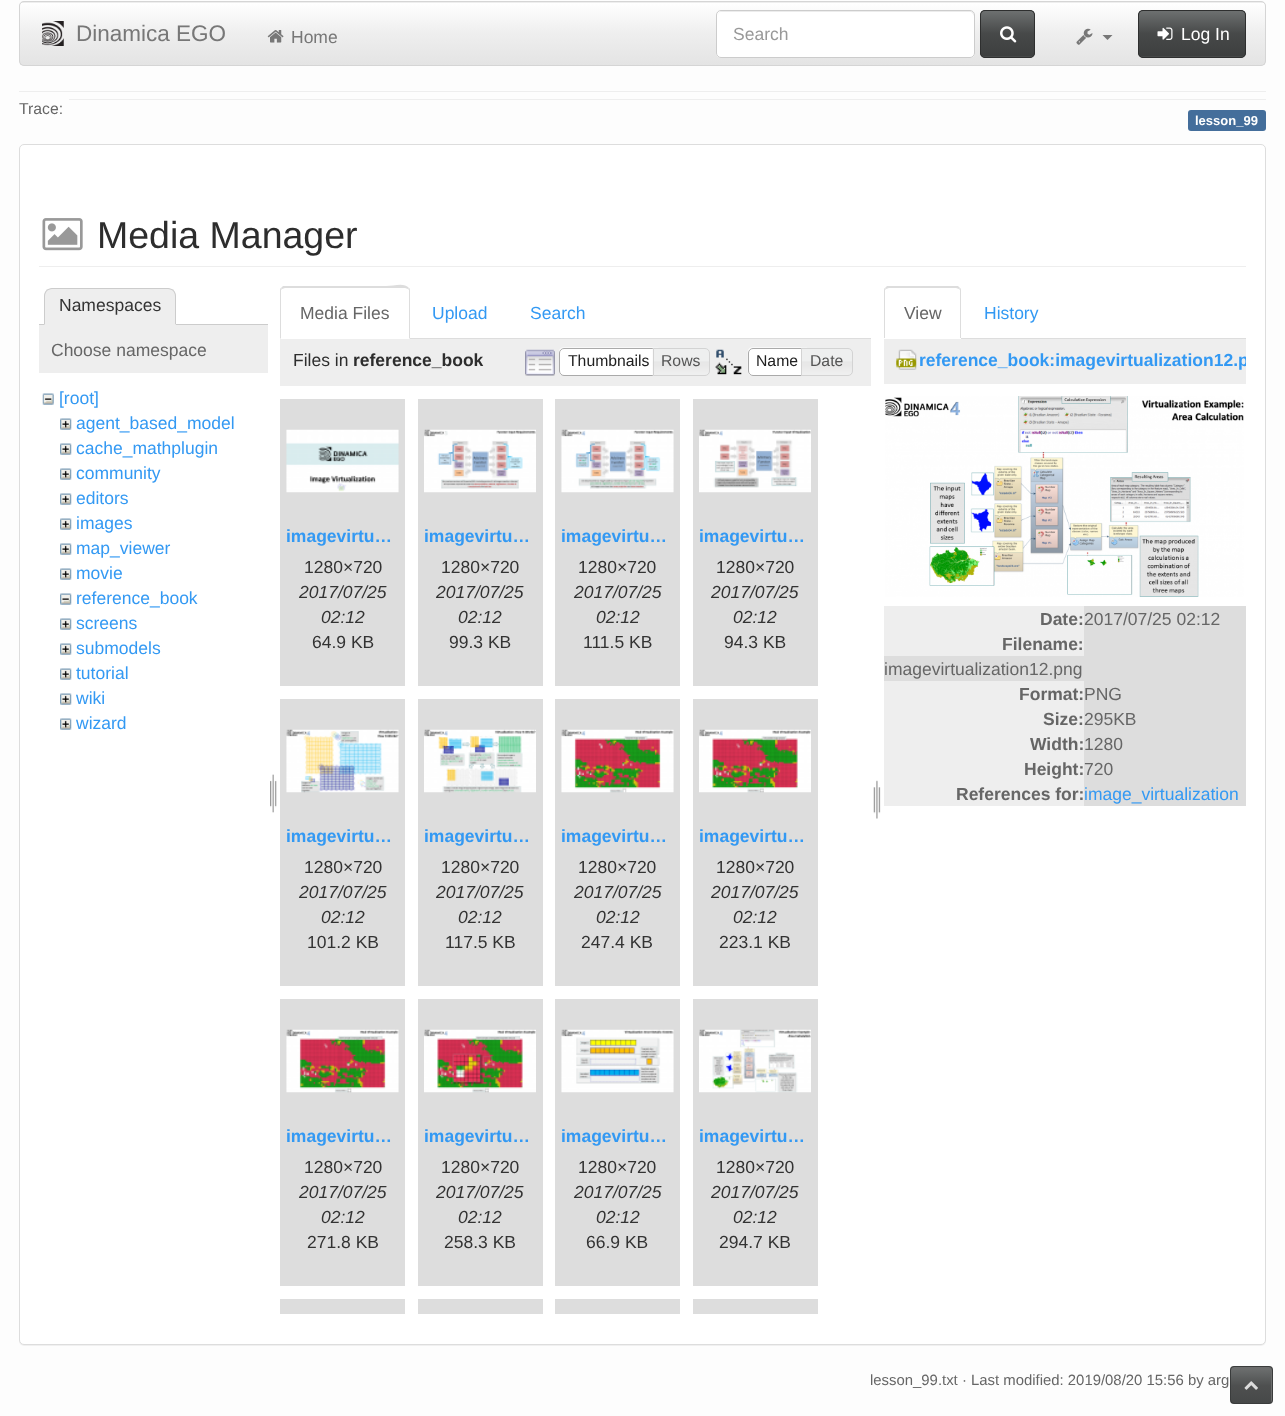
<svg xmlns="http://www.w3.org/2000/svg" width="1285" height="1416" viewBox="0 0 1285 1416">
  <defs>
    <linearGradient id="g1" gradientUnits="userSpaceOnUse" x1="643" y1="2.5" x2="643" y2="65"><stop offset="0" stop-color="#ffffff"/><stop offset="0.5" stop-color="#eeeeee"/><stop offset="1" stop-color="#e4e4e4"/></linearGradient>
    <linearGradient id="g2" gradientUnits="userSpaceOnUse" x1="1008" y1="11" x2="1008" y2="56"><stop offset="0" stop-color="#6d7070"/><stop offset="0.5" stop-color="#474949"/><stop offset="1" stop-color="#3d3f3f"/></linearGradient>
    <linearGradient id="g3" gradientUnits="userSpaceOnUse" x1="1192" y1="11" x2="1192" y2="56"><stop offset="0" stop-color="#6d7070"/><stop offset="0.5" stop-color="#474949"/><stop offset="1" stop-color="#3d3f3f"/></linearGradient>
    <filter id="blur1" x="-50%" y="-200%" width="200%" height="500%"><feGaussianBlur stdDeviation="0.5"/></filter>
    <clipPath id="clip1"><rect x="884" y="339" width="362" height="45"/></clipPath>
    <linearGradient id="g4" gradientUnits="userSpaceOnUse" x1="1251" y1="1368" x2="1251" y2="1403"><stop offset="0" stop-color="#6d7070" stop-opacity="0.8"/><stop offset="0.5" stop-color="#474949" stop-opacity="0.8"/><stop offset="1" stop-color="#3d3f3f" stop-opacity="0.8"/></linearGradient>
  </defs>
  <rect width="100%" height="100%" fill="#fdfdfd"/>
  <rect x="19" y="1" width="1247" height="65" rx="5" fill="#eeeeee"/>
  <rect x="20" y="3" width="1245" height="62" fill="url(#g1)"/>
  <rect x="19.5" y="1.5" width="1246" height="64" rx="4.5" fill="none" stroke="#d5d5d5"/>
  <image x="42" y="21" width="22" height="25" href="img1.png"/>
  <text x="76" y="41" font-family="Liberation Sans" font-size="22.5" fill="#777777">Dinamica EGO</text>
  <image x="267" y="30" width="17" height="13" href="img2.png"/>
  <text x="291" y="43" font-family="Liberation Sans" font-size="17.5" fill="#777777">Home</text>
  <rect x="716" y="10" width="259" height="48" rx="5" fill="#ffffff"/>
  <path d="M721 12H971L973 14L974 16V15C974 13 972 11 970 11H722C720 11 718 13 718 15V16C718 14 719 12 721 12Z" fill="#ececec"/>
  <rect x="716.5" y="10.5" width="258" height="47" rx="4.5" fill="none" stroke="#cccccc"/>
  <text x="733" y="40" font-family="Liberation Sans" font-size="17.5" fill="#999999">Search</text>
  <rect x="980" y="10" width="55" height="48" rx="5" fill="#474949"/>
  <rect x="981" y="11" width="53" height="45" fill="url(#g2)"/>
  <rect x="980.5" y="10.5" width="54" height="47" rx="4.5" fill="none" stroke="#2e2f2f"/>
  <image x="1000" y="26" width="17" height="17" href="img3.png"/>
  <image x="1076" y="28" width="17" height="17" href="img4.png"/>
  <path d="M1102.5 35H1112.5L1107.5 40Z" fill="#777777"/>
  <rect x="1138" y="10" width="108" height="48" rx="5" fill="#474949"/>
  <rect x="1139" y="11" width="106" height="45" fill="url(#g3)"/>
  <rect x="1138.5" y="10.5" width="107" height="47" rx="4.5" fill="none" stroke="#2e2f2f"/>
  <image x="1157" y="27" width="16" height="13" href="img5.png"/>
  <text x="1181" y="40" font-family="Liberation Sans" font-size="17.5" fill="#ffffff">Log In</text>
  <rect x="19" y="91" width="1247" height="1" fill="#eeeeee"/>
  <rect x="69" y="99" width="1197" height="1" fill="#eeeeee"/>
  <text x="19" y="114" font-family="Liberation Sans" font-size="15.75" fill="#666666">Trace:</text>
  <rect x="1188" y="110" width="78" height="21" rx="3" fill="#446e9b"/>
  <text x="1195" y="125" font-family="Liberation Sans" font-size="13" font-weight="bold" fill="#ffffff">lesson_99</text>
  <rect x="19" y="145" width="1247" height="1201" rx="5" fill="#000000" fill-opacity="0.05" filter="url(#blur1)"/>
  <rect x="19.5" y="144.5" width="1246" height="1200" rx="4.5" fill="#ffffff" stroke="#dddddd"/>
  <rect x="39" y="266" width="1207" height="1" fill="#eeeeee"/>
  <image x="42" y="218" width="41" height="33" href="img6.png"/>
  <text x="97" y="248" font-family="Liberation Sans" font-size="37.5" fill="#2d2d2d">Media Manager</text>
  <rect x="39" y="324" width="229" height="1" fill="#cccccc"/>
  <path d="M53 288H167C172 288 176 292 176 297V325H44V297C44 292 48 288 53 288Z" fill="#eeeeee"/>
  <path d="M52 288C50 288 48 289 46 290L47 291C48 290 50 289 52 289H168C170 289 172 290 173 291L174 290C172 289 170 288 168 288Z" fill="#cccccc"/>
  <path d="M176 325V296C176 293.5 175 291.5 173.5 290L173 291C174 292 175 294 175 296V324Z" fill="#cccccc"/>
  <path d="M44 325H176L175 324H45Z" fill="#eeeeee"/>
  <path d="M46.5 290C45 291.5 44 293.5 44 296V325L45 324V296C45 294 46 292 47 291Z" fill="#cccccc"/>
  <text x="59" y="311" font-family="Liberation Sans" font-size="17.5" fill="#333333">Namespaces</text>
  <rect x="39" y="325" width="229" height="48" fill="#eeeeee"/>
  <text x="51" y="356" font-family="Liberation Sans" font-size="17.5" fill="#666666">Choose namespace</text>
  <image x="42" y="393" width="12" height="12" href="img7.png"/>
  <text x="59" y="404" font-family="Liberation Sans" font-size="17.5" fill="#3399f3">[root]</text>
  <image x="60" y="418" width="12" height="12" href="img8.png"/>
  <text x="76" y="429" font-family="Liberation Sans" font-size="17.5" fill="#3399f3">agent_based_model</text>
  <image x="60" y="443" width="12" height="12" href="img8.png"/>
  <text x="76" y="454" font-family="Liberation Sans" font-size="17.5" fill="#3399f3">cache_mathplugin</text>
  <image x="60" y="468" width="12" height="12" href="img8.png"/>
  <text x="76" y="479" font-family="Liberation Sans" font-size="17.5" fill="#3399f3">community</text>
  <image x="60" y="493" width="12" height="12" href="img8.png"/>
  <text x="76" y="504" font-family="Liberation Sans" font-size="17.5" fill="#3399f3">editors</text>
  <image x="60" y="518" width="12" height="12" href="img8.png"/>
  <text x="76" y="529" font-family="Liberation Sans" font-size="17.5" fill="#3399f3">images</text>
  <image x="60" y="543" width="12" height="12" href="img8.png"/>
  <text x="76" y="554" font-family="Liberation Sans" font-size="17.5" fill="#3399f3">map_viewer</text>
  <image x="60" y="568" width="12" height="12" href="img8.png"/>
  <text x="76" y="579" font-family="Liberation Sans" font-size="17.5" fill="#3399f3">movie</text>
  <image x="60" y="593" width="12" height="12" href="img9.png"/>
  <text x="76" y="604" font-family="Liberation Sans" font-size="17.5" fill="#3399f3">reference_book</text>
  <image x="60" y="618" width="12" height="12" href="img8.png"/>
  <text x="76" y="629" font-family="Liberation Sans" font-size="17.5" fill="#3399f3">screens</text>
  <image x="60" y="643" width="12" height="12" href="img8.png"/>
  <text x="76" y="654" font-family="Liberation Sans" font-size="17.5" fill="#3399f3">submodels</text>
  <image x="60" y="668" width="12" height="12" href="img8.png"/>
  <text x="76" y="679" font-family="Liberation Sans" font-size="17.5" fill="#3399f3">tutorial</text>
  <image x="60" y="693" width="12" height="12" href="img8.png"/>
  <text x="76" y="704" font-family="Liberation Sans" font-size="17.5" fill="#3399f3">wiki</text>
  <image x="60" y="718" width="12" height="12" href="img8.png"/>
  <text x="76" y="729" font-family="Liberation Sans" font-size="17.5" fill="#3399f3">wizard</text>
  <image x="270" y="774" width="7" height="39" href="img10.png"/>
  <rect x="410" y="338" width="461" height="1" fill="#dddddd"/>
  <path d="M285 288L282 289L281 288L283 286H386C394 286 404 282 409 288L408 289L405 288Z" fill="#dddddd"/>
  <path d="M410 339V291C410 290 410 288 409 288L408 289L409 290V338Z" fill="#dddddd"/>
  <path d="M280 339L281 338V290L282 289L281 288C280 288 280 290 280 291Z" fill="#dddddd"/>
  <text x="300" y="319" font-family="Liberation Sans" font-size="17.5" fill="#666666">Media Files</text>
  <text x="432" y="319" font-family="Liberation Sans" font-size="17.5" fill="#3399f3">Upload</text>
  <text x="530" y="319" font-family="Liberation Sans" font-size="17.5" fill="#3399f3">Search</text>
  <rect x="280" y="339" width="591" height="47" fill="#eeeeee"/>
  <text x="293" y="366" font-family="Liberation Sans" font-size="17.5" fill="#2d2d2d">Files in</text>
  <text x="353" y="366" font-family="Liberation Sans" font-size="17.5" font-weight="bold" fill="#2d2d2d">reference_book</text>
  <image x="525" y="349" width="30" height="27" href="img11.png"/>
  <image x="559" y="347" width="100" height="28" href="img12.png"/>
  <path d="M564 348.5H658.5V375.5H564C561.5 375.5 559.5 373.5 559.5 371V353C559.5 350.5 561.5 348.5 564 348.5Z" fill="none" stroke="#aaaaaa"/>
  <text x="568" y="366" font-family="Liberation Sans" font-size="15.75" fill="#212121">Thumbnails</text>
  <image x="652" y="347" width="58" height="29" href="img13.png"/>
  <path d="M653.5 348.5H705C707.5 348.5 709.5 350.5 709.5 353V371C709.5 373.5 707.5 375.5 705 375.5H653.5Z" fill="none" stroke="#d3d3d3"/>
  <text x="661" y="366" font-family="Liberation Sans" font-size="15.75" fill="#555555">Rows</text>
  <image x="715" y="349" width="27" height="26" href="img14.png"/>
  <image x="747" y="347" width="60" height="29" href="img15.png"/>
  <path d="M753 348.5H807.5V375.5H753C750.5 375.5 748.5 373.5 748.5 371V353C748.5 350.5 750.5 348.5 753 348.5Z" fill="none" stroke="#aaaaaa"/>
  <text x="756" y="366" font-family="Liberation Sans" font-size="15.75" fill="#212121">Name</text>
  <image x="801" y="347" width="51" height="29" href="img16.png"/>
  <path d="M801.5 348.5H848C850.5 348.5 852.5 350.5 852.5 353V371C852.5 373.5 850.5 375.5 848 375.5H801.5Z" fill="none" stroke="#d3d3d3"/>
  <text x="810" y="366" font-family="Liberation Sans" font-size="15.75" fill="#555555">Date</text>
  <rect x="280" y="399" width="125" height="287" fill="#dddddd"/>
  <image x="286" y="429" width="113" height="64" href="img17.png"/>
  <text x="286" y="542" font-family="Liberation Sans" font-size="17.5" font-weight="bold" fill="#3399f3">imagevirtu…</text>
  <text x="304" y="573" font-family="Liberation Sans" font-size="17.5" fill="#333333">1280×720</text>
  <text x="299" y="598" font-family="Liberation Sans" font-size="17.5" font-style="italic" fill="#333333">2017/07/25</text>
  <text x="321" y="623" font-family="Liberation Sans" font-size="17.5" font-style="italic" fill="#333333">02:12</text>
  <text x="312" y="648" font-family="Liberation Sans" font-size="17.5" fill="#333333">64.9 KB</text>
  <rect x="418" y="399" width="125" height="287" fill="#dddddd"/>
  <image x="424" y="429" width="112" height="64" href="img18.png"/>
  <text x="424" y="542" font-family="Liberation Sans" font-size="17.5" font-weight="bold" fill="#3399f3">imagevirtu…</text>
  <text x="441" y="573" font-family="Liberation Sans" font-size="17.5" fill="#333333">1280×720</text>
  <text x="436" y="598" font-family="Liberation Sans" font-size="17.5" font-style="italic" fill="#333333">2017/07/25</text>
  <text x="458" y="623" font-family="Liberation Sans" font-size="17.5" font-style="italic" fill="#333333">02:12</text>
  <text x="449" y="648" font-family="Liberation Sans" font-size="17.5" fill="#333333">99.3 KB</text>
  <rect x="555" y="399" width="125" height="287" fill="#dddddd"/>
  <image x="561" y="429" width="113" height="64" href="img19.png"/>
  <text x="561" y="542" font-family="Liberation Sans" font-size="17.5" font-weight="bold" fill="#3399f3">imagevirtu…</text>
  <text x="578" y="573" font-family="Liberation Sans" font-size="17.5" fill="#333333">1280×720</text>
  <text x="574" y="598" font-family="Liberation Sans" font-size="17.5" font-style="italic" fill="#333333">2017/07/25</text>
  <text x="596" y="623" font-family="Liberation Sans" font-size="17.5" font-style="italic" fill="#333333">02:12</text>
  <text x="583" y="648" font-family="Liberation Sans" font-size="17.5" fill="#333333">111.5 KB</text>
  <rect x="693" y="399" width="125" height="287" fill="#dddddd"/>
  <image x="699" y="429" width="112" height="64" href="img20.png"/>
  <text x="699" y="542" font-family="Liberation Sans" font-size="17.5" font-weight="bold" fill="#3399f3">imagevirtu…</text>
  <text x="716" y="573" font-family="Liberation Sans" font-size="17.5" fill="#333333">1280×720</text>
  <text x="711" y="598" font-family="Liberation Sans" font-size="17.5" font-style="italic" fill="#333333">2017/07/25</text>
  <text x="733" y="623" font-family="Liberation Sans" font-size="17.5" font-style="italic" fill="#333333">02:12</text>
  <text x="724" y="648" font-family="Liberation Sans" font-size="17.5" fill="#333333">94.3 KB</text>
  <rect x="280" y="699" width="125" height="287" fill="#dddddd"/>
  <image x="286" y="729" width="113" height="64" href="img21.png"/>
  <text x="286" y="842" font-family="Liberation Sans" font-size="17.5" font-weight="bold" fill="#3399f3">imagevirtu…</text>
  <text x="304" y="873" font-family="Liberation Sans" font-size="17.5" fill="#333333">1280×720</text>
  <text x="299" y="898" font-family="Liberation Sans" font-size="17.5" font-style="italic" fill="#333333">2017/07/25</text>
  <text x="321" y="923" font-family="Liberation Sans" font-size="17.5" font-style="italic" fill="#333333">02:12</text>
  <text x="307" y="948" font-family="Liberation Sans" font-size="17.5" fill="#333333">101.2 KB</text>
  <rect x="418" y="699" width="125" height="287" fill="#dddddd"/>
  <image x="424" y="729" width="112" height="64" href="img22.png"/>
  <text x="424" y="842" font-family="Liberation Sans" font-size="17.5" font-weight="bold" fill="#3399f3">imagevirtu…</text>
  <text x="441" y="873" font-family="Liberation Sans" font-size="17.5" fill="#333333">1280×720</text>
  <text x="436" y="898" font-family="Liberation Sans" font-size="17.5" font-style="italic" fill="#333333">2017/07/25</text>
  <text x="458" y="923" font-family="Liberation Sans" font-size="17.5" font-style="italic" fill="#333333">02:12</text>
  <text x="445" y="948" font-family="Liberation Sans" font-size="17.5" fill="#333333">117.5 KB</text>
  <rect x="555" y="699" width="125" height="287" fill="#dddddd"/>
  <image x="561" y="729" width="113" height="64" href="img23.png"/>
  <text x="561" y="842" font-family="Liberation Sans" font-size="17.5" font-weight="bold" fill="#3399f3">imagevirtu…</text>
  <text x="578" y="873" font-family="Liberation Sans" font-size="17.5" fill="#333333">1280×720</text>
  <text x="574" y="898" font-family="Liberation Sans" font-size="17.5" font-style="italic" fill="#333333">2017/07/25</text>
  <text x="596" y="923" font-family="Liberation Sans" font-size="17.5" font-style="italic" fill="#333333">02:12</text>
  <text x="581" y="948" font-family="Liberation Sans" font-size="17.5" fill="#333333">247.4 KB</text>
  <rect x="693" y="699" width="125" height="287" fill="#dddddd"/>
  <image x="699" y="729" width="112" height="64" href="img24.png"/>
  <text x="699" y="842" font-family="Liberation Sans" font-size="17.5" font-weight="bold" fill="#3399f3">imagevirtu…</text>
  <text x="716" y="873" font-family="Liberation Sans" font-size="17.5" fill="#333333">1280×720</text>
  <text x="711" y="898" font-family="Liberation Sans" font-size="17.5" font-style="italic" fill="#333333">2017/07/25</text>
  <text x="733" y="923" font-family="Liberation Sans" font-size="17.5" font-style="italic" fill="#333333">02:12</text>
  <text x="719" y="948" font-family="Liberation Sans" font-size="17.5" fill="#333333">223.1 KB</text>
  <rect x="280" y="999" width="125" height="287" fill="#dddddd"/>
  <image x="286" y="1029" width="113" height="64" href="img25.png"/>
  <text x="286" y="1142" font-family="Liberation Sans" font-size="17.5" font-weight="bold" fill="#3399f3">imagevirtu…</text>
  <text x="304" y="1173" font-family="Liberation Sans" font-size="17.5" fill="#333333">1280×720</text>
  <text x="299" y="1198" font-family="Liberation Sans" font-size="17.5" font-style="italic" fill="#333333">2017/07/25</text>
  <text x="321" y="1223" font-family="Liberation Sans" font-size="17.5" font-style="italic" fill="#333333">02:12</text>
  <text x="307" y="1248" font-family="Liberation Sans" font-size="17.5" fill="#333333">271.8 KB</text>
  <rect x="418" y="999" width="125" height="287" fill="#dddddd"/>
  <image x="424" y="1029" width="112" height="64" href="img26.png"/>
  <text x="424" y="1142" font-family="Liberation Sans" font-size="17.5" font-weight="bold" fill="#3399f3">imagevirtu…</text>
  <text x="441" y="1173" font-family="Liberation Sans" font-size="17.5" fill="#333333">1280×720</text>
  <text x="436" y="1198" font-family="Liberation Sans" font-size="17.5" font-style="italic" fill="#333333">2017/07/25</text>
  <text x="458" y="1223" font-family="Liberation Sans" font-size="17.5" font-style="italic" fill="#333333">02:12</text>
  <text x="444" y="1248" font-family="Liberation Sans" font-size="17.5" fill="#333333">258.3 KB</text>
  <rect x="555" y="999" width="125" height="287" fill="#dddddd"/>
  <image x="561" y="1029" width="113" height="64" href="img27.png"/>
  <text x="561" y="1142" font-family="Liberation Sans" font-size="17.5" font-weight="bold" fill="#3399f3">imagevirtu…</text>
  <text x="578" y="1173" font-family="Liberation Sans" font-size="17.5" fill="#333333">1280×720</text>
  <text x="574" y="1198" font-family="Liberation Sans" font-size="17.5" font-style="italic" fill="#333333">2017/07/25</text>
  <text x="596" y="1223" font-family="Liberation Sans" font-size="17.5" font-style="italic" fill="#333333">02:12</text>
  <text x="586" y="1248" font-family="Liberation Sans" font-size="17.5" fill="#333333">66.9 KB</text>
  <rect x="693" y="999" width="125" height="287" fill="#dddddd"/>
  <image x="699" y="1029" width="112" height="64" href="img28.png"/>
  <text x="699" y="1142" font-family="Liberation Sans" font-size="17.5" font-weight="bold" fill="#3399f3">imagevirtu…</text>
  <text x="716" y="1173" font-family="Liberation Sans" font-size="17.5" fill="#333333">1280×720</text>
  <text x="711" y="1198" font-family="Liberation Sans" font-size="17.5" font-style="italic" fill="#333333">2017/07/25</text>
  <text x="733" y="1223" font-family="Liberation Sans" font-size="17.5" font-style="italic" fill="#333333">02:12</text>
  <text x="719" y="1248" font-family="Liberation Sans" font-size="17.5" fill="#333333">294.7 KB</text>
  <rect x="280" y="1299" width="125" height="15" fill="#dddddd"/>
  <rect x="418" y="1299" width="125" height="15" fill="#dddddd"/>
  <rect x="555" y="1299" width="125" height="15" fill="#dddddd"/>
  <rect x="693" y="1299" width="125" height="15" fill="#dddddd"/>
  <image x="873" y="780" width="8" height="39" href="img29.png"/>
  <rect x="961" y="338" width="285" height="1" fill="#dddddd"/>
  <path d="M889 288L886 289L885 288L887 286H958L960 288L959 289L956 288Z" fill="#dddddd"/>
  <path d="M960 288C961 288 961 290 961 291V338H960V290L959 289Z" fill="#dddddd"/>
  <path d="M884 338V291C884 290 884 288 885 288L886 289L885 290V338Z" fill="#dddddd"/>
  <text x="904" y="319" font-family="Liberation Sans" font-size="17.5" fill="#666666">View</text>
  <text x="984" y="319" font-family="Liberation Sans" font-size="17.5" fill="#3399f3">History</text>
  <rect x="884" y="339" width="362" height="45" fill="#eeeeee"/>
  <image x="896" y="349" width="21" height="21" href="img30.png"/>
  <g clip-path="url(#clip1)">
    <text x="919" y="366" font-family="Liberation Sans" font-size="17.5" font-weight="bold" fill="#3399f3">reference_book:imagevirtualization12.p</text>
  </g>
  <image x="885" y="396" width="359" height="201" href="img31.png"/>
  <rect x="884" y="631" width="362" height="50" fill="#dddddd"/>
  <rect x="884" y="606" width="200" height="50" fill="#eeeeee"/>
  <text x="1040" y="625" font-family="Liberation Sans" font-size="17.5" font-weight="bold" fill="#666666">Date:</text>
  <rect x="1084" y="606" width="162" height="25" fill="#dddddd"/>
  <text x="1084" y="625" font-family="Liberation Sans" font-size="17.5" fill="#666666">2017/07/25 02:12</text>
  <text x="1002" y="650" font-family="Liberation Sans" font-size="17.5" font-weight="bold" fill="#666666">Filename:</text>
  <text x="884" y="675" font-family="Liberation Sans" font-size="17.5" fill="#666666">imagevirtualization12.png</text>
  <rect x="884" y="681" width="200" height="125" fill="#eeeeee"/>
  <text x="1019" y="700" font-family="Liberation Sans" font-size="17.5" font-weight="bold" fill="#666666">Format:</text>
  <rect x="1084" y="681" width="162" height="125" fill="#dddddd"/>
  <text x="1084" y="700" font-family="Liberation Sans" font-size="17.5" fill="#666666">PNG</text>
  <text x="1043" y="725" font-family="Liberation Sans" font-size="17.5" font-weight="bold" fill="#666666">Size:</text>
  <text x="1084" y="725" font-family="Liberation Sans" font-size="17.5" fill="#666666">295KB</text>
  <text x="1030" y="750" font-family="Liberation Sans" font-size="17.5" font-weight="bold" fill="#666666">Width:</text>
  <text x="1084" y="750" font-family="Liberation Sans" font-size="17.5" fill="#666666">1280</text>
  <text x="1024" y="775" font-family="Liberation Sans" font-size="17.5" font-weight="bold" fill="#666666">Height:</text>
  <text x="1084" y="775" font-family="Liberation Sans" font-size="17.5" fill="#666666">720</text>
  <text x="956" y="800" font-family="Liberation Sans" font-size="17.5" font-weight="bold" fill="#666666">References for:</text>
  <text x="1084" y="800" font-family="Liberation Sans" font-size="17.5" fill="#3399f3">image_virtualization</text>
  <text x="870" y="1385" font-family="Liberation Sans" font-size="14.9" fill="#666666">lesson_99.txt · Last modified: 2019/08/20 15:56 by arg</text>
  <rect x="1230" y="1366" width="43" height="38" rx="4" fill="#474949" fill-opacity="0.8"/>
  <rect x="1231" y="1370" width="40" height="33" fill="url(#g4)"/>
  <rect x="1230.5" y="1366.5" width="42" height="37" rx="3.5" fill="none" stroke="#2e2f2f" stroke-opacity="0.8"/>
  <image x="1244" y="1381" width="14" height="9" href="img32.png"/>
</svg>
